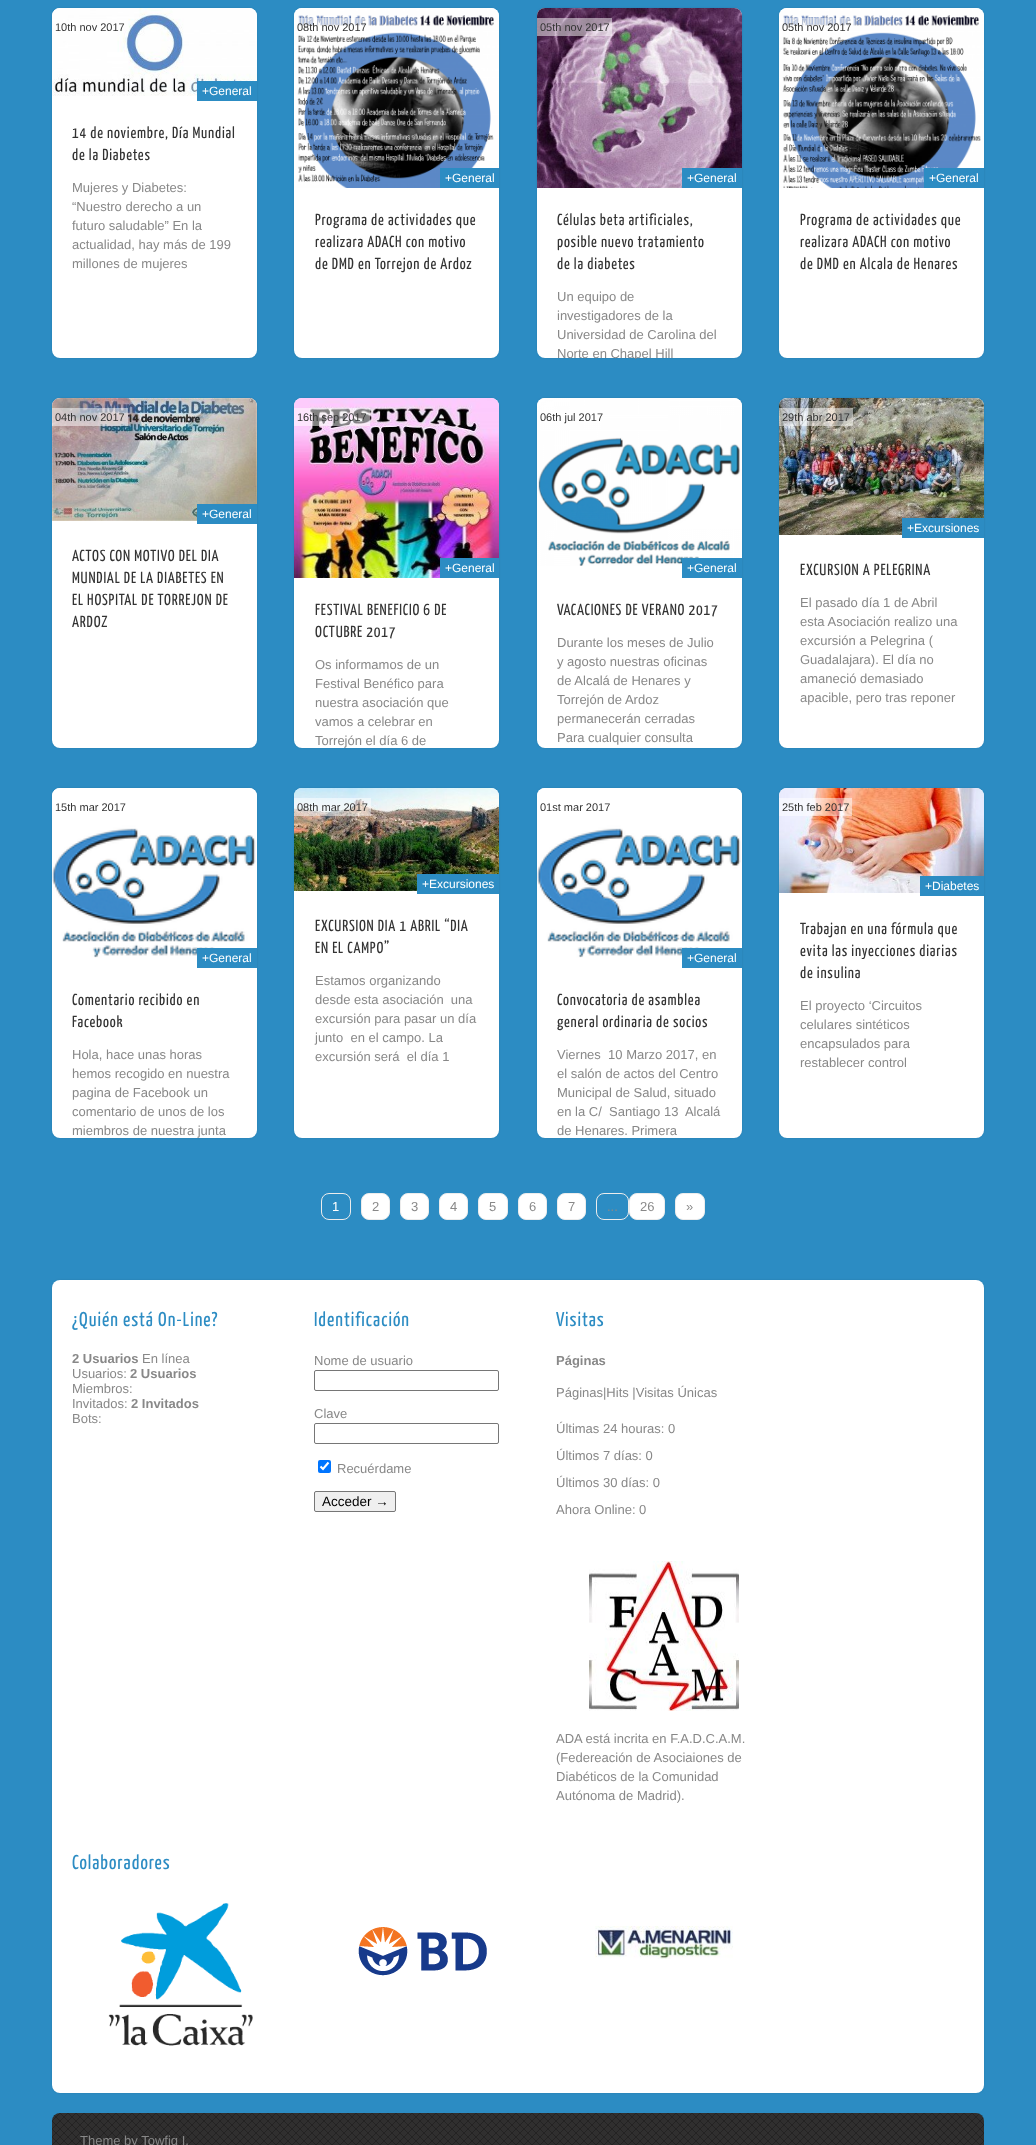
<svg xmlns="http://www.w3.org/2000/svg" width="1036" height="2145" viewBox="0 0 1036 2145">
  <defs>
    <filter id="blur1" x="-50%" y="-200%" width="200%" height="500%"><feGaussianBlur stdDeviation="1"/></filter>
    <clipPath id="clip1"><rect x="537" y="188" width="205" height="171"/></clipPath>
    <clipPath id="clip2"><rect x="779" y="896" width="205" height="171"/></clipPath>
  </defs>
  <rect width="100%" height="100%" fill="#2c8cc3"/>
  <rect x="52" y="8" width="205" height="350" rx="8" fill="#000000" fill-opacity="0.1" filter="url(#blur1)"/>
  <rect x="52" y="8" width="205" height="350" rx="8" fill="#ffffff"/>
  <image x="52" y="8" width="205" height="88" href="img1.png"/>
  <rect x="126" y="33" width="2" height="3" fill="#ffffff" fill-opacity="0.5"/>
  <text x="55" y="31" font-family="Liberation Sans" font-size="11" fill="#333333">10th nov 2017</text>
  <rect x="197" y="81" width="60" height="20" fill="#2c8cc3"/>
  <text x="202" y="95" font-family="Liberation Sans" font-size="12" fill="#ffffff">+General</text>
  <text x="72" y="138" font-family="Yanone Kaffeesatz" font-size="16" letter-spacing="0.8" fill="#333333">14 de noviembre, Día Mundial</text>
  <text x="72" y="160" font-family="Yanone Kaffeesatz" font-size="16" letter-spacing="0.8" fill="#333333">de la Diabetes</text>
  <text x="72" y="192" font-family="Liberation Sans" font-size="13" fill="#888888">Mujeres y Diabetes:</text>
  <text x="72" y="211" font-family="Liberation Sans" font-size="13" fill="#888888">“Nuestro derecho a un</text>
  <text x="72" y="230" font-family="Liberation Sans" font-size="13" fill="#888888">futuro saludable” En la</text>
  <text x="72" y="249" font-family="Liberation Sans" font-size="13" fill="#888888">actualidad, hay más de 199</text>
  <text x="72" y="268" font-family="Liberation Sans" font-size="13" fill="#888888">millones de mujeres</text>
  <rect x="294" y="8" width="205" height="350" rx="8" fill="#000000" fill-opacity="0.1" filter="url(#blur1)"/>
  <rect x="294" y="8" width="205" height="350" rx="8" fill="#ffffff"/>
  <image x="294" y="8" width="205" height="180" href="img2.png"/>
  <rect x="298" y="18" width="72" height="18" fill="#ffffff" fill-opacity="0.5"/>
  <text x="297" y="31" font-family="Liberation Sans" font-size="11" fill="#333333">08th nov 2017</text>
  <rect x="440" y="168" width="59" height="20" fill="#2c8cc3"/>
  <text x="445" y="182" font-family="Liberation Sans" font-size="12" fill="#ffffff">+General</text>
  <text x="315" y="225" font-family="Yanone Kaffeesatz" font-size="16" letter-spacing="0.8" fill="#333333">Programa de actividades que</text>
  <text x="315" y="247" font-family="Yanone Kaffeesatz" font-size="16" letter-spacing="0.8" fill="#333333">realizara ADACH con motivo</text>
  <text x="315" y="269" font-family="Yanone Kaffeesatz" font-size="16" letter-spacing="0.8" fill="#333333">de DMD en Torrejon de Ardoz</text>
  <rect x="537" y="8" width="205" height="350" rx="8" fill="#000000" fill-opacity="0.1" filter="url(#blur1)"/>
  <rect x="537" y="8" width="205" height="350" rx="8" fill="#ffffff"/>
  <image x="537" y="8" width="205" height="180" href="img3.png"/>
  <rect x="537" y="18" width="75" height="18" fill="#ffffff" fill-opacity="0.5"/>
  <text x="540" y="31" font-family="Liberation Sans" font-size="11" fill="#333333">05th nov 2017</text>
  <rect x="682" y="168" width="60" height="20" fill="#2c8cc3"/>
  <text x="687" y="182" font-family="Liberation Sans" font-size="12" fill="#ffffff">+General</text>
  <text x="557" y="225" font-family="Yanone Kaffeesatz" font-size="16" letter-spacing="0.8" fill="#333333">Células beta artificiales,</text>
  <text x="557" y="247" font-family="Yanone Kaffeesatz" font-size="16" letter-spacing="0.8" fill="#333333">posible nuevo tratamiento</text>
  <text x="557" y="269" font-family="Yanone Kaffeesatz" font-size="16" letter-spacing="0.8" fill="#333333">de la diabetes</text>
  <text x="557" y="301" font-family="Liberation Sans" font-size="13" fill="#888888">Un equipo de</text>
  <text x="557" y="320" font-family="Liberation Sans" font-size="13" fill="#888888">investigadores de la</text>
  <text x="557" y="339" font-family="Liberation Sans" font-size="13" fill="#888888">Universidad de Carolina del</text>
  <g clip-path="url(#clip1)">
    <text x="557" y="358" font-family="Liberation Sans" font-size="13" fill="#888888">Norte en Chapel Hill</text>
  </g>
  <rect x="779" y="8" width="205" height="350" rx="8" fill="#000000" fill-opacity="0.1" filter="url(#blur1)"/>
  <rect x="779" y="8" width="205" height="350" rx="8" fill="#ffffff"/>
  <image x="779" y="8" width="205" height="180" href="img4.png"/>
  <rect x="783" y="18" width="72" height="8" fill="#ffffff" fill-opacity="0.5"/>
  <text x="782" y="31" font-family="Liberation Sans" font-size="11" fill="#333333">05th nov 2017</text>
  <rect x="924" y="168" width="60" height="20" fill="#2c8cc3"/>
  <text x="929" y="182" font-family="Liberation Sans" font-size="12" fill="#ffffff">+General</text>
  <text x="800" y="225" font-family="Yanone Kaffeesatz" font-size="16" letter-spacing="0.8" fill="#333333">Programa de actividades que</text>
  <text x="800" y="247" font-family="Yanone Kaffeesatz" font-size="16" letter-spacing="0.8" fill="#333333">realizara ADACH con motivo</text>
  <text x="800" y="269" font-family="Yanone Kaffeesatz" font-size="16" letter-spacing="0.8" fill="#333333">de DMD en Alcala de Henares</text>
  <rect x="52" y="398" width="205" height="350" rx="8" fill="#000000" fill-opacity="0.1" filter="url(#blur1)"/>
  <rect x="52" y="398" width="205" height="350" rx="8" fill="#ffffff"/>
  <image x="52" y="398" width="205" height="123" href="img5.png"/>
  <rect x="52" y="408" width="76" height="18" fill="#ffffff" fill-opacity="0.5"/>
  <text x="55" y="421" font-family="Liberation Sans" font-size="11" fill="#333333">04th nov 2017</text>
  <rect x="197" y="504" width="60" height="20" fill="#2c8cc3"/>
  <text x="202" y="518" font-family="Liberation Sans" font-size="12" fill="#ffffff">+General</text>
  <text x="72" y="561" font-family="Yanone Kaffeesatz" font-size="16" letter-spacing="0.8" fill="#333333">ACTOS CON MOTIVO DEL DIA</text>
  <text x="72" y="583" font-family="Yanone Kaffeesatz" font-size="16" letter-spacing="0.8" fill="#333333">MUNDIAL DE LA DIABETES EN</text>
  <text x="72" y="605" font-family="Yanone Kaffeesatz" font-size="16" letter-spacing="0.8" fill="#333333">EL HOSPITAL DE TORREJON DE</text>
  <text x="72" y="627" font-family="Yanone Kaffeesatz" font-size="16" letter-spacing="0.8" fill="#333333">ARDOZ</text>
  <rect x="294" y="398" width="205" height="350" rx="8" fill="#000000" fill-opacity="0.1" filter="url(#blur1)"/>
  <rect x="294" y="398" width="205" height="350" rx="8" fill="#ffffff"/>
  <image x="294" y="398" width="205" height="180" href="img6.png"/>
  <rect x="294" y="408" width="76" height="18" fill="#ffffff" fill-opacity="0.5"/>
  <text x="297" y="421" font-family="Liberation Sans" font-size="11" fill="#333333">16th sep 2017</text>
  <rect x="440" y="558" width="59" height="20" fill="#2c8cc3"/>
  <text x="445" y="572" font-family="Liberation Sans" font-size="12" fill="#ffffff">+General</text>
  <text x="315" y="615" font-family="Yanone Kaffeesatz" font-size="16" letter-spacing="0.8" fill="#333333">FESTIVAL BENEFICIO 6 DE</text>
  <text x="315" y="637" font-family="Yanone Kaffeesatz" font-size="16" letter-spacing="0.8" fill="#333333">OCTUBRE 2017</text>
  <text x="315" y="669" font-family="Liberation Sans" font-size="13" fill="#888888">Os informamos de un</text>
  <text x="315" y="688" font-family="Liberation Sans" font-size="13" fill="#888888">Festival Benéfico para</text>
  <text x="315" y="707" font-family="Liberation Sans" font-size="13" fill="#888888">nuestra asociación que</text>
  <text x="315" y="726" font-family="Liberation Sans" font-size="13" fill="#888888">vamos a celebrar en</text>
  <text x="315" y="745" font-family="Liberation Sans" font-size="13" fill="#888888">Torrejón el día 6 de</text>
  <rect x="537" y="398" width="205" height="350" rx="8" fill="#000000" fill-opacity="0.1" filter="url(#blur1)"/>
  <rect x="537" y="398" width="205" height="350" rx="8" fill="#ffffff"/>
  <image x="537" y="398" width="205" height="168" href="img7.png"/>
  <text x="540" y="421" font-family="Liberation Sans" font-size="11" fill="#333333">06th jul 2017</text>
  <rect x="682" y="558" width="60" height="20" fill="#2c8cc3"/>
  <text x="687" y="572" font-family="Liberation Sans" font-size="12" fill="#ffffff">+General</text>
  <text x="557" y="615" font-family="Yanone Kaffeesatz" font-size="16" letter-spacing="0.8" fill="#333333">VACACIONES DE VERANO 2017</text>
  <text x="557" y="647" font-family="Liberation Sans" font-size="13" fill="#888888">Durante los meses de Julio</text>
  <text x="557" y="666" font-family="Liberation Sans" font-size="13" fill="#888888">y agosto nuestras oficinas</text>
  <text x="557" y="685" font-family="Liberation Sans" font-size="13" fill="#888888">de Alcalá de Henares y</text>
  <text x="557" y="704" font-family="Liberation Sans" font-size="13" fill="#888888">Torrejón de Ardoz</text>
  <text x="557" y="723" font-family="Liberation Sans" font-size="13" fill="#888888">permanecerán cerradas</text>
  <text x="557" y="742" font-family="Liberation Sans" font-size="13" fill="#888888">Para cualquier consulta</text>
  <rect x="779" y="398" width="205" height="350" rx="8" fill="#000000" fill-opacity="0.1" filter="url(#blur1)"/>
  <rect x="779" y="398" width="205" height="350" rx="8" fill="#ffffff"/>
  <image x="779" y="398" width="205" height="137" href="img8.png"/>
  <rect x="779" y="408" width="74" height="18" fill="#ffffff" fill-opacity="0.5"/>
  <text x="782" y="421" font-family="Liberation Sans" font-size="11" fill="#333333">29th abr 2017</text>
  <rect x="902" y="518" width="82" height="20" fill="#2c8cc3"/>
  <text x="907" y="532" font-family="Liberation Sans" font-size="12" fill="#ffffff">+Excursiones</text>
  <text x="800" y="575" font-family="Yanone Kaffeesatz" font-size="16" letter-spacing="0.8" fill="#333333">EXCURSION A PELEGRINA</text>
  <text x="800" y="607" font-family="Liberation Sans" font-size="13" fill="#888888">El pasado día 1 de Abril</text>
  <text x="800" y="626" font-family="Liberation Sans" font-size="13" fill="#888888">esta Asociación realizo una</text>
  <text x="800" y="645" font-family="Liberation Sans" font-size="13" fill="#888888">excursión a Pelegrina (</text>
  <text x="800" y="664" font-family="Liberation Sans" font-size="13" fill="#888888">Guadalajara). El día no</text>
  <text x="800" y="683" font-family="Liberation Sans" font-size="13" fill="#888888">amaneció demasiado</text>
  <text x="800" y="702" font-family="Liberation Sans" font-size="13" fill="#888888">apacible, pero tras reponer</text>
  <rect x="52" y="788" width="205" height="350" rx="8" fill="#000000" fill-opacity="0.1" filter="url(#blur1)"/>
  <rect x="52" y="788" width="205" height="350" rx="8" fill="#ffffff"/>
  <image x="52" y="788" width="205" height="170" href="img9.png"/>
  <text x="55" y="811" font-family="Liberation Sans" font-size="11" fill="#333333">15th mar 2017</text>
  <rect x="197" y="948" width="60" height="20" fill="#2c8cc3"/>
  <text x="202" y="962" font-family="Liberation Sans" font-size="12" fill="#ffffff">+General</text>
  <text x="72" y="1005" font-family="Yanone Kaffeesatz" font-size="16" letter-spacing="0.8" fill="#333333">Comentario recibido en</text>
  <text x="72" y="1027" font-family="Yanone Kaffeesatz" font-size="16" letter-spacing="0.8" fill="#333333">Facebook</text>
  <text x="72" y="1059" font-family="Liberation Sans" font-size="13" fill="#888888">Hola, hace unas horas</text>
  <text x="72" y="1078" font-family="Liberation Sans" font-size="13" fill="#888888">hemos recogido en nuestra</text>
  <text x="72" y="1097" font-family="Liberation Sans" font-size="13" fill="#888888">pagina de Facebook un</text>
  <text x="72" y="1116" font-family="Liberation Sans" font-size="13" fill="#888888">comentario de unos de los</text>
  <text x="72" y="1135" font-family="Liberation Sans" font-size="13" fill="#888888">miembros de nuestra junta</text>
  <rect x="294" y="788" width="205" height="350" rx="8" fill="#000000" fill-opacity="0.1" filter="url(#blur1)"/>
  <rect x="294" y="788" width="205" height="350" rx="8" fill="#ffffff"/>
  <image x="294" y="788" width="205" height="103" href="img10.png"/>
  <rect x="294" y="798" width="77" height="18" fill="#ffffff" fill-opacity="0.5"/>
  <text x="297" y="811" font-family="Liberation Sans" font-size="11" fill="#333333">08th mar 2017</text>
  <rect x="417" y="874" width="82" height="20" fill="#2c8cc3"/>
  <text x="422" y="888" font-family="Liberation Sans" font-size="12" fill="#ffffff">+Excursiones</text>
  <text x="315" y="931" font-family="Yanone Kaffeesatz" font-size="16" letter-spacing="0.8" fill="#333333">EXCURSION DIA 1 ABRIL “DIA</text>
  <text x="315" y="953" font-family="Yanone Kaffeesatz" font-size="16" letter-spacing="0.8" fill="#333333">EN EL CAMPO”</text>
  <text x="315" y="985" font-family="Liberation Sans" font-size="13" fill="#888888">Estamos organizando</text>
  <text x="315" y="1004" font-family="Liberation Sans" font-size="13" fill="#888888" xml:space="preserve">desde esta asociación  una</text>
  <text x="315" y="1023" font-family="Liberation Sans" font-size="13" fill="#888888">excursión para pasar un día</text>
  <text x="315" y="1042" font-family="Liberation Sans" font-size="13" fill="#888888" xml:space="preserve">junto  en el campo. La</text>
  <text x="315" y="1061" font-family="Liberation Sans" font-size="13" fill="#888888" xml:space="preserve">excursión será  el día 1</text>
  <rect x="537" y="788" width="205" height="350" rx="8" fill="#000000" fill-opacity="0.1" filter="url(#blur1)"/>
  <rect x="537" y="788" width="205" height="350" rx="8" fill="#ffffff"/>
  <image x="537" y="788" width="205" height="170" href="img11.png"/>
  <text x="540" y="811" font-family="Liberation Sans" font-size="11" fill="#333333">01st mar 2017</text>
  <rect x="682" y="948" width="60" height="20" fill="#2c8cc3"/>
  <text x="687" y="962" font-family="Liberation Sans" font-size="12" fill="#ffffff">+General</text>
  <text x="557" y="1005" font-family="Yanone Kaffeesatz" font-size="16" letter-spacing="0.8" fill="#333333">Convocatoria de asamblea</text>
  <text x="557" y="1027" font-family="Yanone Kaffeesatz" font-size="16" letter-spacing="0.8" fill="#333333">general ordinaria de socios</text>
  <text x="557" y="1059" font-family="Liberation Sans" font-size="13" fill="#888888" xml:space="preserve">Viernes  10 Marzo 2017, en</text>
  <text x="557" y="1078" font-family="Liberation Sans" font-size="13" fill="#888888">el salón de actos del Centro</text>
  <text x="557" y="1097" font-family="Liberation Sans" font-size="13" fill="#888888">Municipal de Salud, situado</text>
  <text x="557" y="1116" font-family="Liberation Sans" font-size="13" fill="#888888" xml:space="preserve">en la C/  Santiago 13  Alcalá</text>
  <text x="557" y="1135" font-family="Liberation Sans" font-size="13" fill="#888888">de Henares. Primera</text>
  <rect x="779" y="788" width="205" height="350" rx="8" fill="#000000" fill-opacity="0.1" filter="url(#blur1)"/>
  <rect x="779" y="788" width="205" height="350" rx="8" fill="#ffffff"/>
  <image x="779" y="788" width="205" height="105" href="img12.png"/>
  <rect x="779" y="798" width="73" height="18" fill="#ffffff" fill-opacity="0.5"/>
  <text x="782" y="811" font-family="Liberation Sans" font-size="11" fill="#333333">25th feb 2017</text>
  <rect x="920" y="876" width="64" height="20" fill="#2c8cc3"/>
  <text x="925" y="890" font-family="Liberation Sans" font-size="12" fill="#ffffff">+Diabetes</text>
  <text x="800" y="934" font-family="Yanone Kaffeesatz" font-size="16" letter-spacing="0.8" fill="#333333">Trabajan en una fórmula que</text>
  <text x="800" y="956" font-family="Yanone Kaffeesatz" font-size="16" letter-spacing="0.8" fill="#333333">evita las inyecciones diarias</text>
  <text x="800" y="978" font-family="Yanone Kaffeesatz" font-size="16" letter-spacing="0.8" fill="#333333">de insulina</text>
  <text x="800" y="1010" font-family="Liberation Sans" font-size="13" fill="#888888">El proyecto ‘Circuitos</text>
  <text x="800" y="1029" font-family="Liberation Sans" font-size="13" fill="#888888">celulares sintéticos</text>
  <text x="800" y="1048" font-family="Liberation Sans" font-size="13" fill="#888888">encapsulados para</text>
  <g clip-path="url(#clip2)">
    <text x="800" y="1067" font-family="Liberation Sans" font-size="13" fill="#888888">restablecer control</text>
  </g>
  <rect x="321.5" y="1193.5" width="29" height="26" rx="7.5" fill="none" stroke="#ececec"/>
  <text x="332" y="1211" font-family="Liberation Sans" font-size="13" fill="#ffffff">1</text>
  <rect x="361.5" y="1193.5" width="28" height="26" rx="7.5" fill="#ffffff" stroke="#ececec"/>
  <text x="372" y="1211" font-family="Liberation Sans" font-size="13" fill="#888888">2</text>
  <rect x="400.5" y="1193.5" width="28" height="26" rx="7.5" fill="#ffffff" stroke="#ececec"/>
  <text x="411" y="1211" font-family="Liberation Sans" font-size="13" fill="#888888">3</text>
  <rect x="439.5" y="1193.5" width="28" height="26" rx="7.5" fill="#ffffff" stroke="#ececec"/>
  <text x="450" y="1211" font-family="Liberation Sans" font-size="13" fill="#888888">4</text>
  <rect x="478.5" y="1193.5" width="29" height="26" rx="7.5" fill="#ffffff" stroke="#ececec"/>
  <text x="489" y="1211" font-family="Liberation Sans" font-size="13" fill="#888888">5</text>
  <rect x="518.5" y="1193.5" width="28" height="26" rx="7.5" fill="#ffffff" stroke="#ececec"/>
  <text x="529" y="1211" font-family="Liberation Sans" font-size="13" fill="#888888">6</text>
  <rect x="557.5" y="1193.5" width="28" height="26" rx="7.5" fill="#ffffff" stroke="#ececec"/>
  <text x="568" y="1211" font-family="Liberation Sans" font-size="13" fill="#888888">7</text>
  <rect x="596.5" y="1193.5" width="32" height="26" rx="7.5" fill="none" stroke="#ececec"/>
  <text x="607" y="1211" font-family="Liberation Sans" font-size="13" fill="#888888">...</text>
  <rect x="629.5" y="1193.5" width="35" height="26" rx="7.5" fill="#ffffff" stroke="#ececec"/>
  <text x="640" y="1211" font-family="Liberation Sans" font-size="13" fill="#888888">26</text>
  <rect x="675.5" y="1193.5" width="29" height="26" rx="7.5" fill="#ffffff" stroke="#ececec"/>
  <text x="686" y="1211" font-family="Liberation Sans" font-size="13" fill="#888888">»</text>
  <rect x="52" y="1280" width="932" height="813" rx="8" fill="#000000" fill-opacity="0.1" filter="url(#blur1)"/>
  <rect x="52" y="1280" width="932" height="813" rx="8" fill="#ffffff"/>
  <text x="72" y="1326" font-family="Yanone Kaffeesatz" font-size="20" letter-spacing="1" fill="#2c8cc3">¿Quién está On-Line?</text>
  <text x="72" y="1363" font-family="Liberation Sans" font-size="13" font-weight="bold" fill="#888888">2 Usuarios</text>
  <text x="142" y="1363" font-family="Liberation Sans" font-size="13" fill="#888888">En línea</text>
  <text x="72" y="1378" font-family="Liberation Sans" font-size="13" fill="#888888">Usuarios:</text>
  <text x="130" y="1378" font-family="Liberation Sans" font-size="13" font-weight="bold" fill="#888888">2 Usuarios</text>
  <text x="72" y="1393" font-family="Liberation Sans" font-size="13" fill="#888888">Miembros:</text>
  <text x="72" y="1408" font-family="Liberation Sans" font-size="13" fill="#888888">Invitados:</text>
  <text x="131" y="1408" font-family="Liberation Sans" font-size="13" font-weight="bold" fill="#888888">2 Invitados</text>
  <text x="72" y="1423" font-family="Liberation Sans" font-size="13" fill="#888888">Bots:</text>
  <text x="314" y="1326" font-family="Yanone Kaffeesatz" font-size="20" letter-spacing="1" fill="#2c8cc3">Identificación</text>
  <text x="314" y="1365" font-family="Liberation Sans" font-size="13" fill="#888888">Nome de usuario</text>
  <rect x="314.5" y="1370.5" width="184" height="20" rx="1.5" fill="none" stroke="#767676"/>
  <text x="314" y="1418" font-family="Liberation Sans" font-size="13" fill="#888888">Clave</text>
  <rect x="314.5" y="1423.5" width="184" height="20" rx="1.5" fill="none" stroke="#767676"/>
  <rect x="318" y="1460" width="13" height="13" rx="2" fill="#0075ff"/>
  <path d="M320.5 1466.5L323 1469L328.5 1462.5" fill="none" stroke="#ffffff" stroke-width="2.1"/>
  <text x="337" y="1473" font-family="Liberation Sans" font-size="13" fill="#888888">Recuérdame</text>
  <rect x="314.5" y="1491.5" width="81" height="20" rx="1.5" fill="#efefef" stroke="#767676"/>
  <text x="322" y="1506" font-family="Liberation Sans" font-size="13.5" fill="#000000">Acceder →</text>
  <text x="556" y="1326" font-family="Yanone Kaffeesatz" font-size="20" letter-spacing="1" fill="#2c8cc3">Visitas</text>
  <text x="556" y="1365" font-family="Liberation Sans" font-size="13" font-weight="bold" fill="#888888">Páginas</text>
  <text x="556" y="1397" font-family="Liberation Sans" font-size="13" fill="#888888">Páginas|Hits |Visitas Únicas</text>
  <text x="556" y="1433" font-family="Liberation Sans" font-size="13" fill="#888888">Últimas 24 houras: 0</text>
  <text x="556" y="1460" font-family="Liberation Sans" font-size="13" fill="#888888">Últimos 7 días: 0</text>
  <text x="556" y="1487" font-family="Liberation Sans" font-size="13" fill="#888888">Últimos 30 días: 0</text>
  <text x="556" y="1514" font-family="Liberation Sans" font-size="13" fill="#888888">Ahora Online: 0</text>
  <image x="589" y="1561" width="150" height="150" href="img13.png"/>
  <text x="556" y="1743" font-family="Liberation Sans" font-size="13" fill="#888888">ADA está incrita en F.A.D.C.A.M.</text>
  <text x="556" y="1762" font-family="Liberation Sans" font-size="13" fill="#888888">(Federeación de Asociaiones de</text>
  <text x="556" y="1781" font-family="Liberation Sans" font-size="13" fill="#888888">Diabéticos de la Comunidad</text>
  <text x="556" y="1800" font-family="Liberation Sans" font-size="13" fill="#888888">Autónoma de Madrid).</text>
  <text x="72" y="1869" font-family="Yanone Kaffeesatz" font-size="20" letter-spacing="1" fill="#2c8cc3">Colaboradores</text>
  <image x="108" y="1903" width="145" height="143" href="img14.png"/>
  <image x="358" y="1927" width="129" height="49" href="img15.png"/>
  <image x="595" y="1926" width="138" height="33" href="img16.png"/>
  <rect x="52" y="2113" width="932" height="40" rx="8" fill="#302f2f"/>
  <image x="52" y="2113" width="932" height="32" href="img17.png"/>
  <text x="80" y="2145" font-family="Liberation Sans" font-size="13" fill="#888888">Theme by Towfiq I.</text>
</svg>
